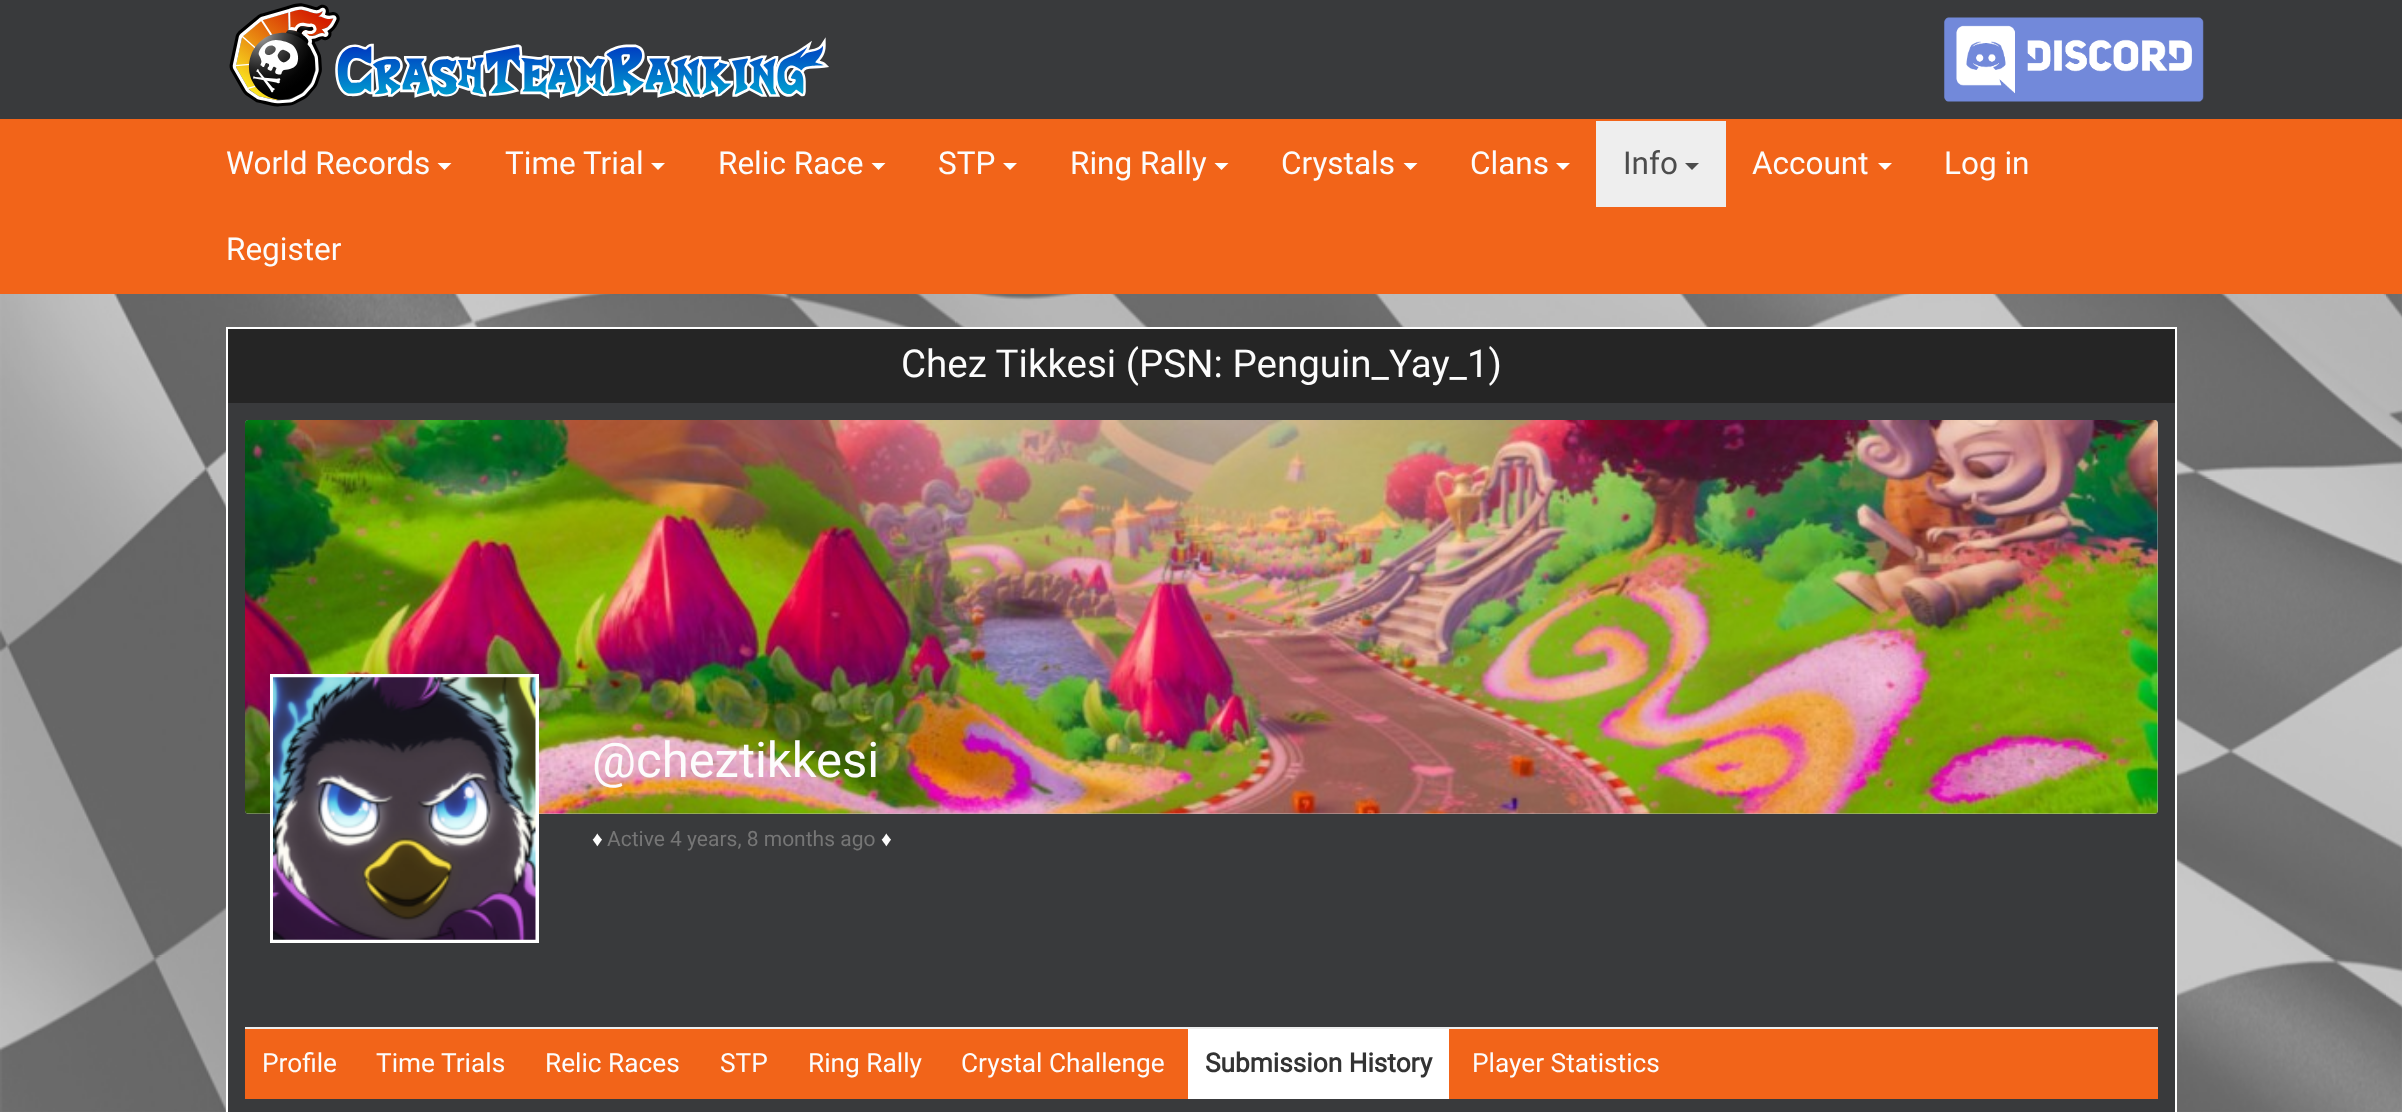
<svg xmlns="http://www.w3.org/2000/svg" width="2402" height="1112" viewBox="0 0 2402 1112">
  <rect width="100%" height="100%" fill="#a5a5a5"/>
  <image x="0" y="294" width="2402" height="818" href="img1.png"/>
  <rect x="0" y="0" width="2402" height="119" fill="#393a3c"/>
  <image x="229" y="3" width="600" height="104" href="img2.png"/>
  <image x="1944" y="17" width="260" height="85" href="img3.png"/>
  <rect x="0" y="119" width="2402" height="175" fill="#f26419"/>
  <text x="226" y="174" font-family="Roboto" font-size="31.5" fill="#fcfcfc">World Records</text>
  <path d="M437.5 163H451.5L444.5 170Z" fill="#ffffff"/>
  <text x="505" y="174" font-family="Roboto" font-size="31.5" fill="#fcfcfc">Time Trial</text>
  <path d="M651 163H665L658 170Z" fill="#ffffff"/>
  <text x="718" y="174" font-family="Roboto" font-size="31.5" fill="#fcfcfc">Relic Race</text>
  <path d="M871.5 163H885.5L878.5 170Z" fill="#ffffff"/>
  <text x="938" y="174" font-family="Roboto" font-size="31.5" fill="#fcfcfc">STP</text>
  <path d="M1003 163H1017L1010 170Z" fill="#ffffff"/>
  <text x="1070" y="174" font-family="Roboto" font-size="31.5" fill="#fcfcfc">Ring Rally</text>
  <path d="M1214.5 163H1228.5L1221.5 170Z" fill="#ffffff"/>
  <text x="1281" y="174" font-family="Roboto" font-size="31.5" fill="#fcfcfc">Crystals</text>
  <path d="M1403.5 163H1417.5L1410.5 170Z" fill="#ffffff"/>
  <text x="1470" y="174" font-family="Roboto" font-size="31.5" fill="#fcfcfc">Clans</text>
  <path d="M1556 163H1570L1563 170Z" fill="#ffffff"/>
  <rect x="1596" y="121" width="130" height="86" fill="#eeeeee"/>
  <text x="1623" y="174" font-family="Roboto" font-size="31.5" fill="#4c4c4c">Info</text>
  <path d="M1685 163H1699L1692 170Z" fill="#4c4c4c"/>
  <text x="1752" y="174" font-family="Roboto" font-size="31.5" fill="#fcfcfc">Account</text>
  <path d="M1878 163H1892L1885 170Z" fill="#ffffff"/>
  <text x="1944" y="174" font-family="Roboto" font-size="31.5" fill="#fcfcfc">Log in</text>
  <text x="226" y="260" font-family="Roboto" font-size="31.5" fill="#fcfcfc">Register</text>
  <rect x="226" y="327" width="1951" height="785" fill="#ffffff"/>
  <rect x="228" y="329" width="1947" height="74" fill="#252525"/>
  <text x="901" y="377" font-family="Roboto" font-size="38.5" fill="#fcfcfc">Chez Tikkesi (PSN: Penguin_Yay_1)</text>
  <rect x="228" y="403" width="1947" height="709" fill="#393a3c"/>
  <rect x="245" y="420" width="1913" height="394" rx="4" fill="#c5c5c5"/>
  <image x="245" y="420" width="1913" height="394" href="img4.png"/>
  <rect x="272" y="676" width="265" height="265" fill="none" stroke="#ffffff" stroke-width="4"/>
  <image x="273" y="677" width="263" height="263" href="img5.png"/>
  <text x="592" y="777" font-family="Roboto" font-size="49" fill="#fcfcfc">@cheztikkesi</text>
  <text x="592" y="846" font-family="Liberation Sans" font-size="21" fill="#fcfcfc">♦</text>
  <text x="607" y="846" font-family="Roboto" font-size="21" fill="#767676">Active 4 years, 8 months ago</text>
  <text x="881" y="846" font-family="Liberation Sans" font-size="21" fill="#fcfcfc">♦</text>
  <rect x="245" y="1029" width="1913" height="70" fill="#f26419"/>
  <rect x="245" y="1027" width="1913" height="2" fill="#eeeeee"/>
  <text x="262" y="1072" font-family="Roboto" font-size="26.25" fill="#fcfcfc">Profile</text>
  <text x="376" y="1072" font-family="Roboto" font-size="26.25" fill="#fcfcfc">Time Trials</text>
  <text x="545" y="1072" font-family="Roboto" font-size="26.25" fill="#fcfcfc">Relic Races</text>
  <text x="720" y="1072" font-family="Roboto" font-size="26.25" fill="#fcfcfc">STP</text>
  <text x="808" y="1072" font-family="Roboto" font-size="26.25" fill="#fcfcfc">Ring Rally</text>
  <text x="961" y="1072" font-family="Roboto" font-size="26.25" fill="#fcfcfc">Crystal Challenge</text>
  <rect x="1188" y="1029" width="261" height="70" fill="#ffffff"/>
  <text x="1205" y="1072" font-family="Roboto" font-size="26.25" font-weight="bold" fill="#333333">Submission History</text>
  <text x="1472" y="1072" font-family="Roboto" font-size="26.25" fill="#fcfcfc">Player Statistics</text>
</svg>
